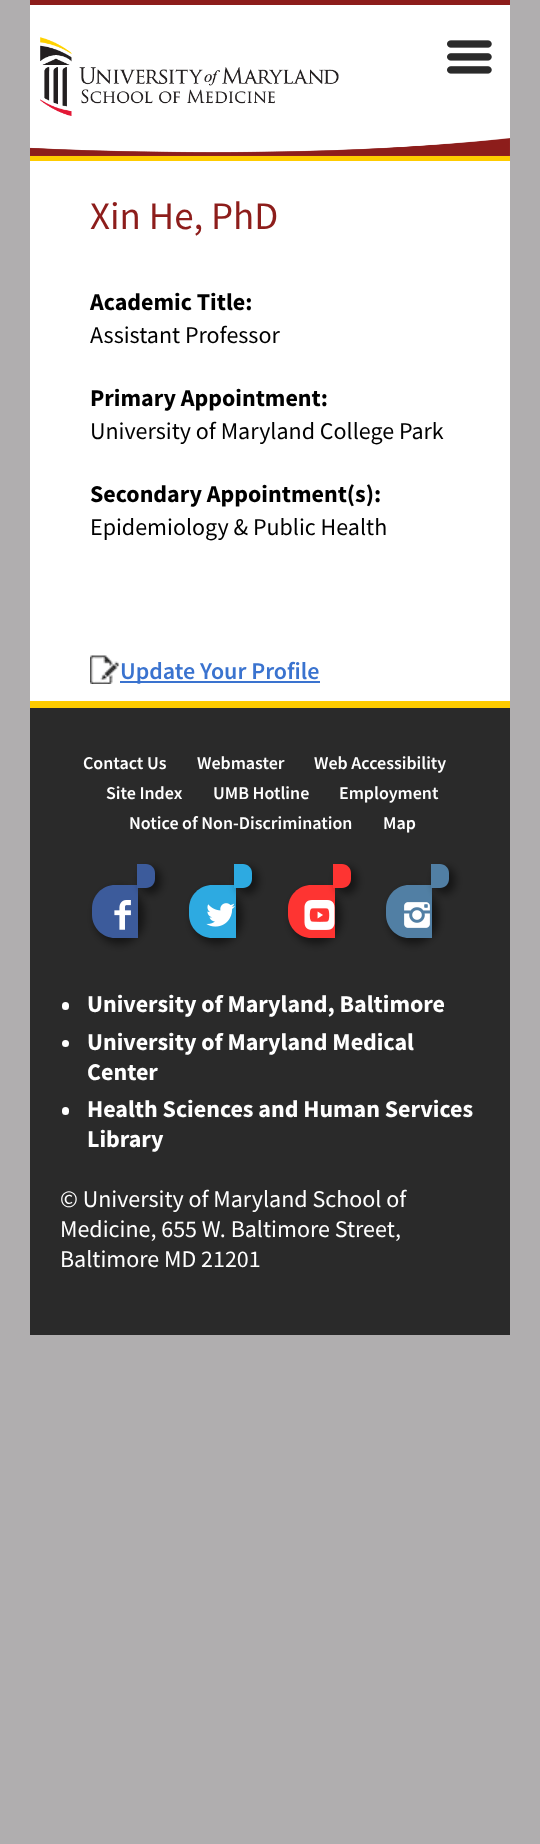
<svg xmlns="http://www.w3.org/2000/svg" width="540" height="1844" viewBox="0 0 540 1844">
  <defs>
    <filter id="blur1" x="-50%" y="-200%" width="200%" height="500%"><feGaussianBlur stdDeviation="4"/></filter>
  </defs>
  <rect width="100%" height="100%" fill="#b0aeaf"/>
  <rect x="30" y="5" width="480" height="151" fill="#ffffff"/>
  <image x="30" y="138" width="480" height="18" href="img1.png"/>
  <rect x="30" y="0" width="480" height="5" fill="#8d1d1b"/>
  <rect x="30" y="156" width="480" height="5" fill="#ffcc00"/>
  <image x="40" y="37" width="299" height="79" href="img2.png"/>
  <image x="447" y="40" width="45" height="34" href="img3.png"/>
  <rect x="30" y="161" width="480" height="540" fill="#ffffff"/>
  <text x="90" y="229" font-family="Source Sans Pro" font-size="39" fill="#8d1d1b">Xin He, PhD</text>
  <text x="90" y="310" font-family="Source Sans Pro" font-size="24" font-weight="bold" fill="#000000">Academic Title:</text>
  <text x="90" y="343" font-family="Source Sans Pro" font-size="24" fill="#000000">Assistant Professor</text>
  <text x="90" y="406" font-family="Source Sans Pro" font-size="24" font-weight="bold" fill="#000000">Primary Appointment:</text>
  <text x="90" y="439" font-family="Source Sans Pro" font-size="24" fill="#000000">University of Maryland College Park</text>
  <text x="90" y="502" font-family="Source Sans Pro" font-size="24" font-weight="bold" fill="#000000">Secondary Appointment(s):</text>
  <text x="90" y="535" font-family="Source Sans Pro" font-size="24" fill="#000000">Epidemiology &amp; Public Health</text>
  <image x="90" y="655" width="30" height="29" href="img4.png"/>
  <rect x="120" y="681" width="200" height="2" fill="#3a73cf"/>
  <text x="120" y="679" font-family="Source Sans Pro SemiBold" font-size="24" font-weight="600" fill="#3a73cf">Update Your Profile</text>
  <rect x="30" y="708" width="480" height="627" fill="#2a2a2a"/>
  <rect x="30" y="701" width="480" height="7" fill="#ffcc00"/>
  <text x="83" y="769" font-family="Source Sans Pro SemiBold" font-size="18" font-weight="600" fill="#ffffff">Contact Us</text>
  <text x="197" y="769" font-family="Source Sans Pro SemiBold" font-size="18" font-weight="600" fill="#ffffff">Webmaster</text>
  <text x="314" y="769" font-family="Source Sans Pro SemiBold" font-size="18" font-weight="600" fill="#ffffff">Web Accessibility</text>
  <text x="106" y="799" font-family="Source Sans Pro SemiBold" font-size="18" font-weight="600" fill="#ffffff">Site Index</text>
  <text x="213" y="799" font-family="Source Sans Pro SemiBold" font-size="18" font-weight="600" fill="#ffffff">UMB Hotline</text>
  <text x="339" y="799" font-family="Source Sans Pro SemiBold" font-size="18" font-weight="600" fill="#ffffff">Employment</text>
  <text x="129" y="829" font-family="Source Sans Pro SemiBold" font-size="18" font-weight="600" fill="#ffffff">Notice of Non-Discrimination</text>
  <text x="383" y="829" font-family="Source Sans Pro SemiBold" font-size="18" font-weight="600" fill="#ffffff">Map</text>
  <rect x="95" y="888" width="49" height="56" rx="24.5" fill="#000000" fill-opacity="0.52" filter="url(#blur1)"/>
  <path d="M115 885H138V938H115C102.5 938 92 927.5 92 915V908C92 895.5 102.5 885 115 885Z" fill="#3c5b9b"/>
  <rect x="140" y="867" width="21" height="27" rx="10.5" fill="#000000" fill-opacity="0.52" filter="url(#blur1)"/>
  <path d="M137 864H146C151 864 155 868 155 873V879C155 884 151 888 146 888H137Z" fill="#3c5b9b"/>
  <image x="114" y="900" width="17" height="30" href="img5.png"/>
  <rect x="192" y="888" width="50" height="56" rx="25" fill="#000000" fill-opacity="0.52" filter="url(#blur1)"/>
  <path d="M212.5 885H236V938H212.5C199.5 938 189 927.5 189 914.5V908.5C189 895.5 199.5 885 212.5 885Z" fill="#2daae1"/>
  <rect x="237" y="867" width="21" height="27" rx="10.5" fill="#000000" fill-opacity="0.52" filter="url(#blur1)"/>
  <path d="M234 864H243C248 864 252 868 252 873V879C252 884 248 888 243 888H234Z" fill="#2daae1"/>
  <image x="206" y="903" width="29" height="24" href="img6.png"/>
  <rect x="291" y="888" width="50" height="56" rx="25" fill="#000000" fill-opacity="0.52" filter="url(#blur1)"/>
  <path d="M311.5 885H335V938H311.5C298.5 938 288 927.5 288 914.5V908.5C288 895.5 298.5 885 311.5 885Z" fill="#fe3432"/>
  <rect x="336" y="867" width="21" height="27" rx="10.5" fill="#000000" fill-opacity="0.52" filter="url(#blur1)"/>
  <path d="M333 864H342C347 864 351 868 351 873V879C351 884 347 888 342 888H333Z" fill="#fe3432"/>
  <image x="304" y="900" width="31" height="30" href="img7.png"/>
  <rect x="389" y="888" width="49" height="56" rx="24.5" fill="#000000" fill-opacity="0.52" filter="url(#blur1)"/>
  <path d="M409 885H432V938H409C396.5 938 386 927.5 386 915V908C386 895.5 396.5 885 409 885Z" fill="#517fa4"/>
  <rect x="434" y="867" width="21" height="27" rx="10.5" fill="#000000" fill-opacity="0.52" filter="url(#blur1)"/>
  <path d="M431 864H440C445 864 449 868 449 873V879C449 884 445 888 440 888H431Z" fill="#517fa4"/>
  <image x="404" y="902" width="26" height="26" href="img8.png"/>
  <rect x="62" y="1002" width="7" height="8" rx="3.5" fill="#ffffff"/>
  <text x="87" y="1012" font-family="Source Sans Pro" font-size="24" font-weight="bold" fill="#ffffff">University of Maryland, Baltimore</text>
  <circle cx="65.5" cy="1043.5" r="3.5" fill="#ffffff"/>
  <text x="87" y="1050" font-family="Source Sans Pro" font-size="24" font-weight="bold" fill="#ffffff">University of Maryland Medical</text>
  <text x="87" y="1080" font-family="Source Sans Pro" font-size="24" font-weight="bold" fill="#ffffff">Center</text>
  <rect x="62" y="1107" width="7" height="8" rx="3.5" fill="#ffffff"/>
  <text x="87" y="1117" font-family="Source Sans Pro" font-size="24" font-weight="bold" fill="#ffffff">Health Sciences and Human Services</text>
  <text x="87" y="1147" font-family="Source Sans Pro" font-size="24" font-weight="bold" fill="#ffffff">Library</text>
  <text x="60" y="1207" font-family="Source Sans Pro" font-size="24" fill="#ffffff">© University of Maryland School of</text>
  <text x="60" y="1237" font-family="Source Sans Pro" font-size="24" fill="#ffffff">Medicine, 655 W. Baltimore Street,</text>
  <text x="60" y="1267" font-family="Source Sans Pro" font-size="24" fill="#ffffff">Baltimore MD 21201</text>
</svg>
